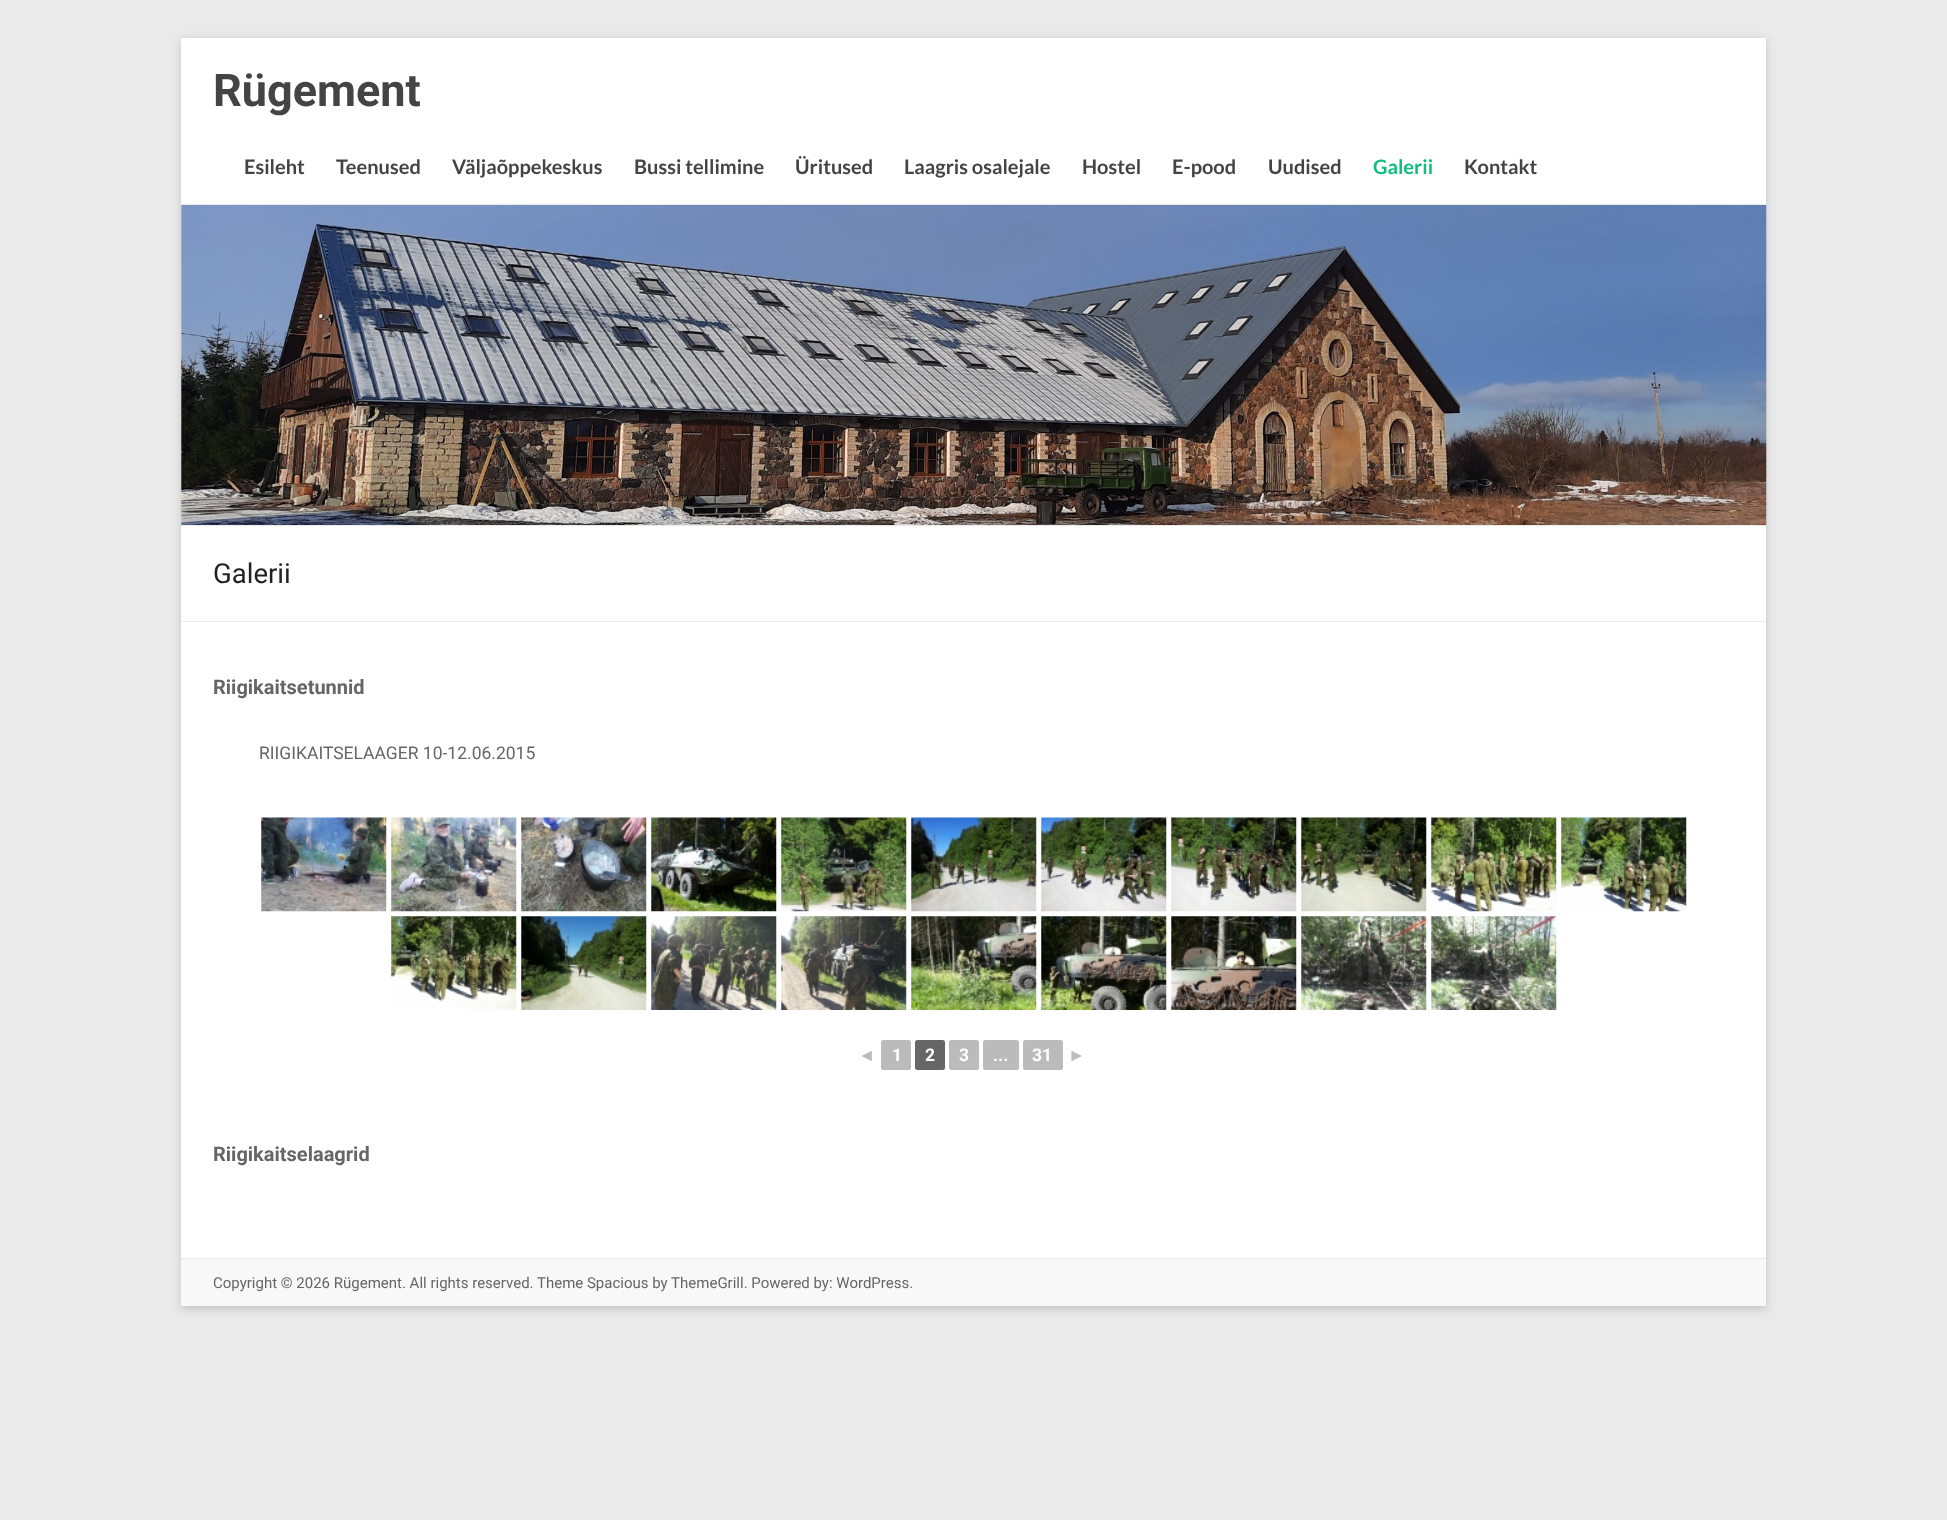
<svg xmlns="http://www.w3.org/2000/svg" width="1947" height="1520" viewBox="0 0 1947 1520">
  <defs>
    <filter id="blur1" x="-50%" y="-200%" width="200%" height="500%"><feGaussianBlur stdDeviation="4"/></filter>
  </defs>
  <rect width="100%" height="100%" fill="#eaeaea"/>
  <rect x="181" y="40" width="1585" height="1269" fill="#646464" fill-opacity="0.3" filter="url(#blur1)"/>
  <rect x="181" y="38" width="1585" height="1220" fill="#ffffff"/>
  <rect x="181" y="204" width="1585" height="1" fill="#eaeaea"/>
  <text x="213" y="106" font-family="Roboto" font-size="45" font-weight="bold" fill="#444444">Rügement</text>
  <text x="244" y="174" font-family="Lato" font-size="20" font-weight="bold" fill="#444444">Esileht</text>
  <text x="336" y="174" font-family="Lato" font-size="20" font-weight="bold" fill="#444444">Teenused</text>
  <text x="452" y="174" font-family="Lato" font-size="20" font-weight="bold" fill="#444444">Väljaõppekeskus</text>
  <text x="634" y="174" font-family="Lato" font-size="20" font-weight="bold" fill="#444444">Bussi tellimine</text>
  <text x="795" y="174" font-family="Lato" font-size="20" font-weight="bold" fill="#444444">Üritused</text>
  <text x="904" y="174" font-family="Lato" font-size="20" font-weight="bold" fill="#444444">Laagris osalejale</text>
  <text x="1082" y="174" font-family="Lato" font-size="20" font-weight="bold" fill="#444444">Hostel</text>
  <text x="1172" y="174" font-family="Lato" font-size="20" font-weight="bold" fill="#444444">E-pood</text>
  <text x="1268" y="174" font-family="Lato" font-size="20" font-weight="bold" fill="#444444">Uudised</text>
  <text x="1373" y="174" font-family="Lato" font-size="20" font-weight="bold" fill="#0fbe7c">Galerii</text>
  <text x="1464" y="174" font-family="Lato" font-size="20" font-weight="bold" fill="#444444">Kontakt</text>
  <image x="181" y="205" width="1586" height="320" href="img1.png"/>
  <rect x="181" y="525" width="1585" height="1" fill="#eaeaea"/>
  <rect x="181" y="621" width="1585" height="1" fill="#eaeaea"/>
  <text x="213" y="583" font-family="Roboto" font-size="27.5" fill="#222222">Galerii</text>
  <text x="213" y="694" font-family="Roboto" font-size="20" font-weight="bold" fill="#666666">Riigikaitsetunnid</text>
  <text x="259" y="759" font-family="Roboto" font-size="17.5" fill="#666666">RIIGIKAITSELAAGER 10-12.06.2015</text>
  <image x="261" y="817" width="126" height="95" href="img2.png"/>
  <image x="391" y="817" width="126" height="95" href="img3.png"/>
  <image x="521" y="817" width="126" height="95" href="img4.png"/>
  <image x="651" y="817" width="126" height="95" href="img5.png"/>
  <image x="781" y="817" width="126" height="95" href="img6.png"/>
  <image x="911" y="817" width="126" height="95" href="img7.png"/>
  <image x="1041" y="817" width="126" height="95" href="img8.png"/>
  <image x="1171" y="817" width="126" height="95" href="img9.png"/>
  <image x="1301" y="817" width="126" height="95" href="img10.png"/>
  <image x="1431" y="817" width="126" height="95" href="img11.png"/>
  <image x="1561" y="817" width="126" height="95" href="img12.png"/>
  <image x="391" y="916" width="126" height="94" href="img13.png"/>
  <image x="521" y="916" width="126" height="94" href="img14.png"/>
  <image x="651" y="916" width="126" height="94" href="img15.png"/>
  <image x="781" y="916" width="126" height="94" href="img16.png"/>
  <image x="911" y="916" width="126" height="94" href="img17.png"/>
  <image x="1041" y="916" width="126" height="94" href="img18.png"/>
  <image x="1171" y="916" width="126" height="94" href="img19.png"/>
  <image x="1301" y="916" width="126" height="94" href="img20.png"/>
  <image x="1431" y="916" width="126" height="94" href="img21.png"/>
  <text x="858" y="1061" font-family="Liberation Sans" font-size="17.5" font-weight="bold" fill="#bbbbbb">◄</text>
  <rect x="881" y="1040" width="30" height="30" rx="2.5" fill="#bbbbbb"/>
  <text x="892" y="1061" font-family="Roboto" font-size="17.5" font-weight="bold" fill="#ffffff">1</text>
  <rect x="915" y="1040" width="30" height="30" rx="2.5" fill="#666666"/>
  <text x="925" y="1061" font-family="Roboto" font-size="17.5" font-weight="bold" fill="#ffffff">2</text>
  <rect x="949" y="1040" width="30" height="30" rx="2.5" fill="#bbbbbb"/>
  <text x="959" y="1061" font-family="Roboto" font-size="17.5" font-weight="bold" fill="#ffffff">3</text>
  <rect x="983" y="1040" width="36" height="30" rx="2.5" fill="#bbbbbb"/>
  <text x="993" y="1061" font-family="Roboto" font-size="17.5" font-weight="bold" fill="#ffffff">...</text>
  <rect x="1023" y="1040" width="40" height="30" rx="2.5" fill="#bbbbbb"/>
  <text x="1032" y="1061" font-family="Roboto" font-size="17.5" font-weight="bold" fill="#ffffff">31</text>
  <text x="1068" y="1061" font-family="Liberation Sans" font-size="17.5" font-weight="bold" fill="#bbbbbb">►</text>
  <text x="213" y="1161" font-family="Roboto" font-size="20" font-weight="bold" fill="#666666">Riigikaitselaagrid</text>
  <rect x="181" y="1259" width="1585" height="47" fill="#f8f8f8"/>
  <rect x="181" y="1258" width="1585" height="1" fill="#eaeaea"/>
  <text x="213" y="1288" font-family="Roboto" font-size="15" fill="#666666">Copyright © 2026 Rügement. All rights reserved. Theme Spacious by ThemeGrill. Powered by: WordPress.</text>
</svg>
